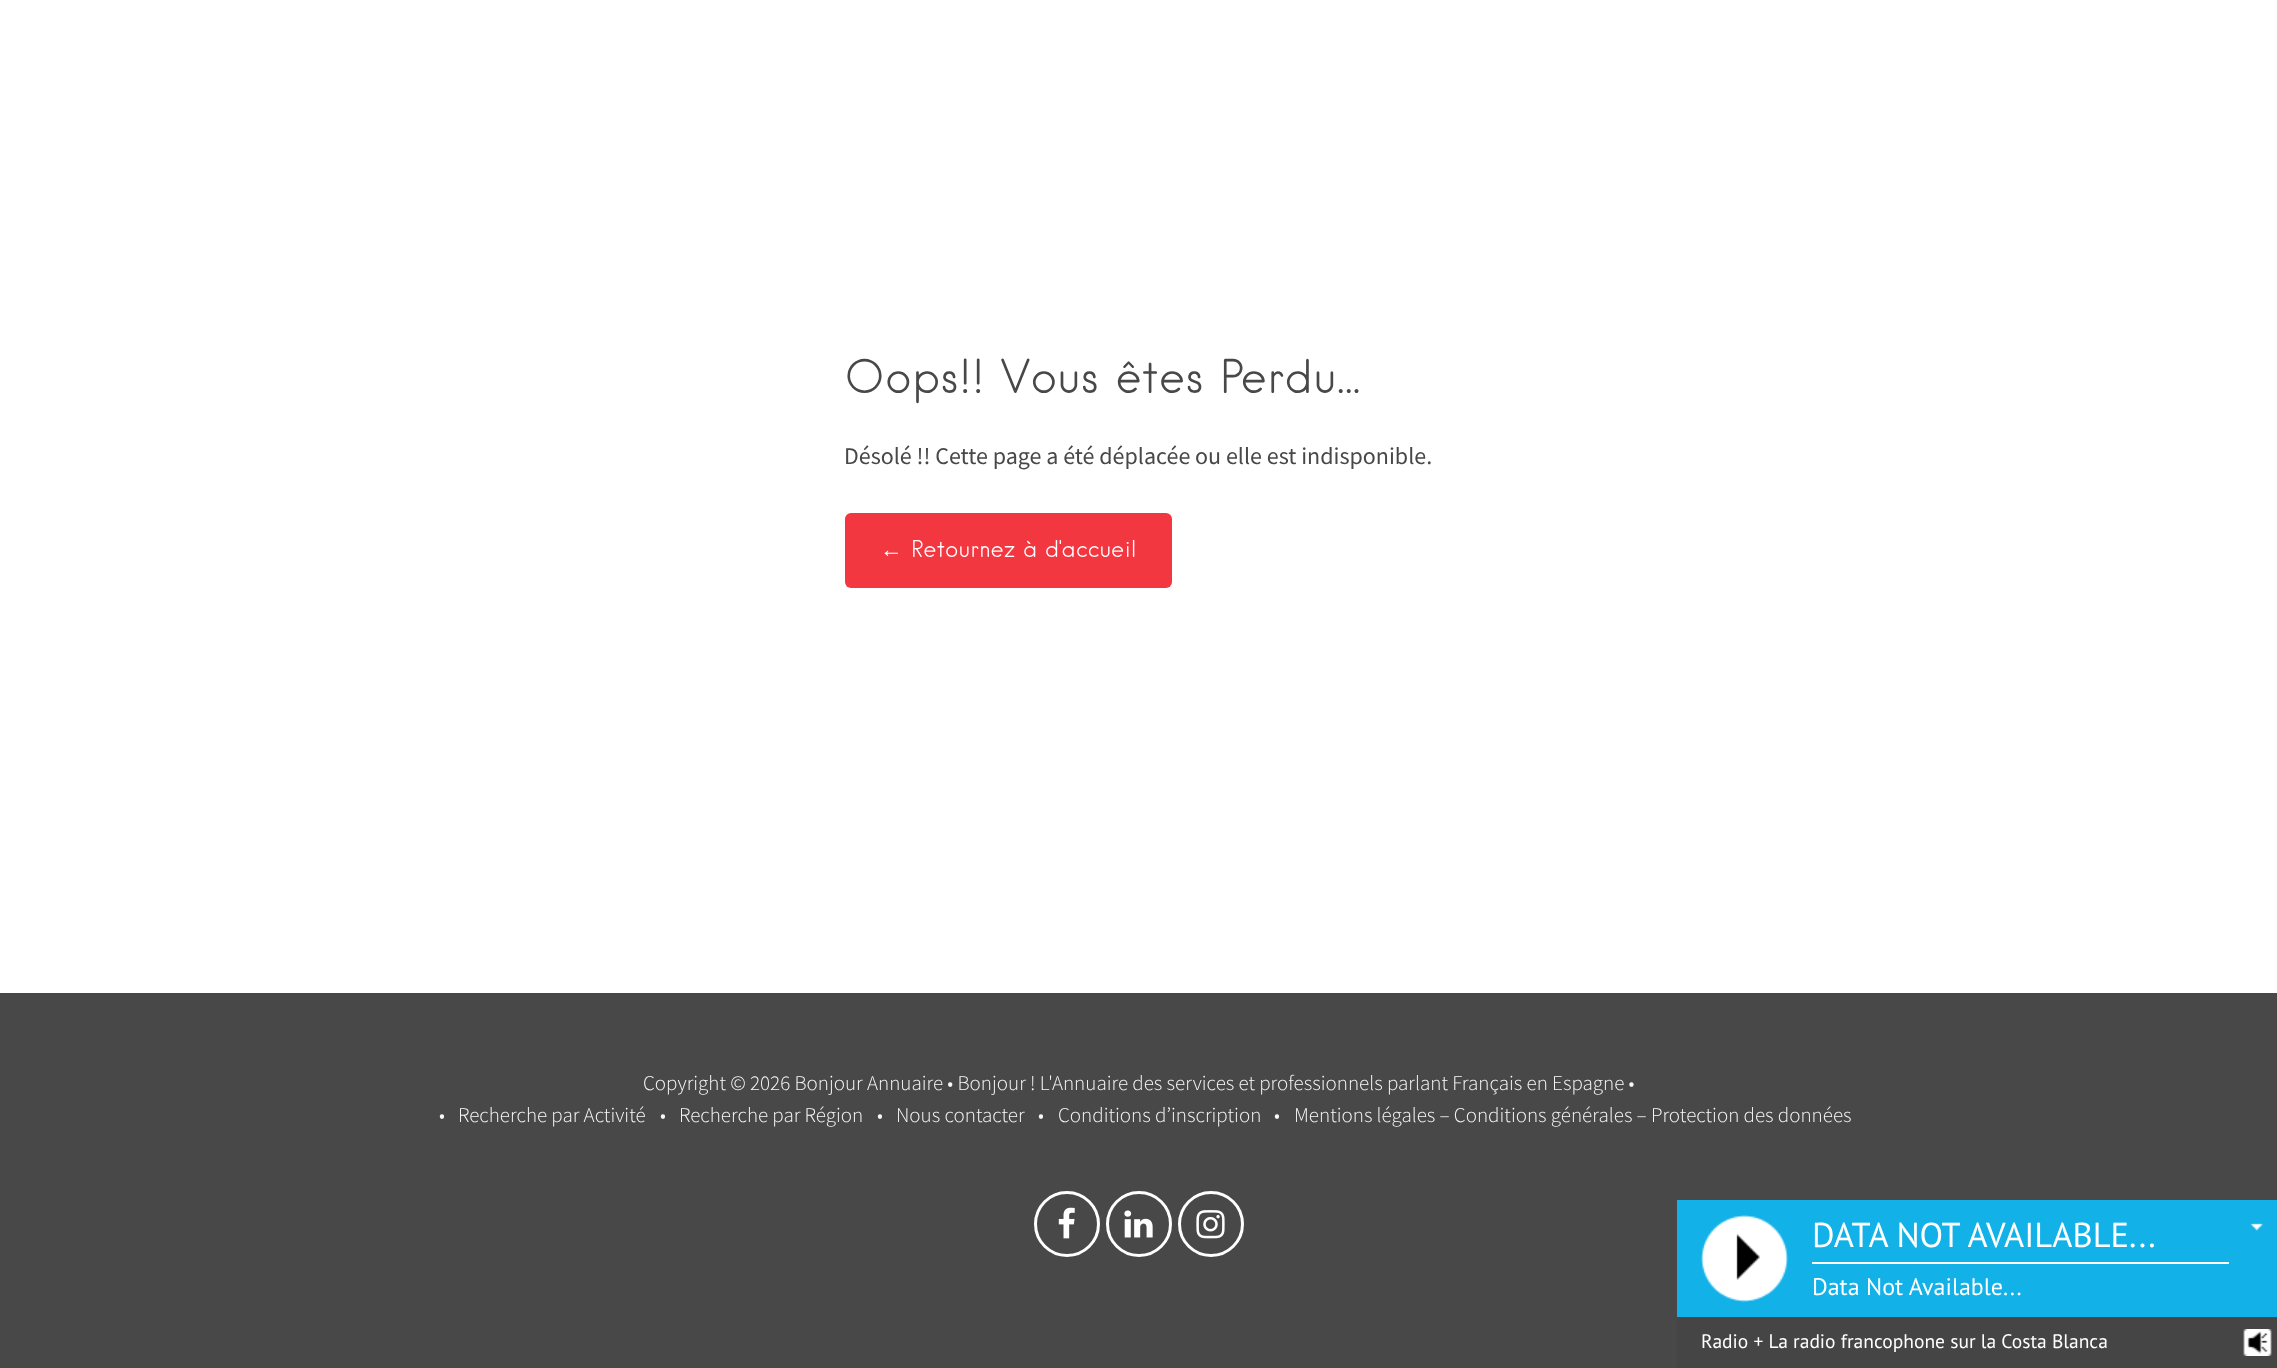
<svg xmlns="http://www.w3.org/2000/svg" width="2277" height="1368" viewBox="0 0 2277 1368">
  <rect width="100%" height="100%" fill="#ffffff"/>
  <text x="844" y="393" font-family="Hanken" font-size="45" font-weight="300" fill="#484848">Oops!! Vous êtes Perdu...</text>
  <text x="844" y="464" font-family="Source Sans Pro" font-size="24" fill="#484848">Désolé !! Cette page a été déplacée ou elle est indisponible.</text>
  <rect x="845" y="513" width="327" height="75" rx="6" fill="#f23741"/>
  <text x="880" y="557" font-family="Liberation Serif" font-size="22.5" fill="#ffffff">←</text>
  <text x="911" y="557" font-family="Hanken" font-size="22.5" font-weight="300" fill="#ffffff">Retournez à d'accueil</text>
  <rect x="0" y="993" width="2277" height="375" fill="#484848"/>
  <text x="643" y="1090" font-family="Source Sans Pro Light" font-size="21" font-weight="300" fill="#f9f9f9">Copyright © 2026 Bonjour Annuaire • Bonjour ! L'Annuaire des services et professionnels parlant Français en Espagne •</text>
  <text x="439" y="1122" font-family="Source Sans Pro Light" font-size="21" font-weight="300" fill="#f9f9f9">•</text>
  <text x="458" y="1122" font-family="Source Sans Pro Light" font-size="21" font-weight="300" fill="#f9f9f9">Recherche par Activité</text>
  <text x="660" y="1122" font-family="Source Sans Pro Light" font-size="21" font-weight="300" fill="#f9f9f9">•</text>
  <text x="679" y="1122" font-family="Source Sans Pro Light" font-size="21" font-weight="300" fill="#f9f9f9">Recherche par Région</text>
  <text x="877" y="1122" font-family="Source Sans Pro Light" font-size="21" font-weight="300" fill="#f9f9f9">•</text>
  <text x="896" y="1122" font-family="Source Sans Pro Light" font-size="21" font-weight="300" fill="#f9f9f9">Nous contacter</text>
  <text x="1038" y="1122" font-family="Source Sans Pro Light" font-size="21" font-weight="300" fill="#f9f9f9">•</text>
  <text x="1058" y="1122" font-family="Source Sans Pro Light" font-size="21" font-weight="300" fill="#f9f9f9">Conditions d’inscription</text>
  <text x="1274" y="1122" font-family="Source Sans Pro Light" font-size="21" font-weight="300" fill="#f9f9f9">•</text>
  <text x="1294" y="1122" font-family="Source Sans Pro Light" font-size="21" font-weight="300" fill="#f9f9f9">Mentions légales – Conditions générales – Protection des données</text>
  <circle cx="1067" cy="1224" r="31.5" fill="none" stroke="#ffffff" stroke-width="3"/>
  <image x="1058" y="1207" width="17" height="32" href="img1.png"/>
  <circle cx="1139" cy="1224" r="31.5" fill="none" stroke="#ffffff" stroke-width="3"/>
  <image x="1124" y="1210" width="29" height="28" href="img2.png"/>
  <circle cx="1211" cy="1224" r="31.5" fill="none" stroke="#ffffff" stroke-width="3"/>
  <image x="1196" y="1210" width="29" height="29" href="img3.png"/>
  <rect x="1677" y="1200" width="600" height="117" fill="#12b1e8"/>
  <image x="1701" y="1215" width="87" height="87" href="img4.png"/>
  <image x="2250" y="1223" width="13" height="8" href="img5.png"/>
  <rect x="1677" y="1317" width="600" height="51" fill="#454545"/>
  <image x="2243" y="1329" width="29" height="27" href="img6.png"/>
  <text x="1812" y="1247" font-family="PT Sans" font-size="34.5" fill="#ffffff">DATA NOT AVAILABLE...</text>
  <rect x="1812" y="1262" width="417" height="2" fill="#ffffff"/>
  <text x="1812" y="1295" font-family="PT Sans" font-size="24" fill="#ffffff">Data Not Available...</text>
  <text x="1701" y="1348" font-family="PT Sans" font-size="19.5" fill="#ffffff">Radio + La radio francophone sur la Costa Blanca</text>
</svg>
